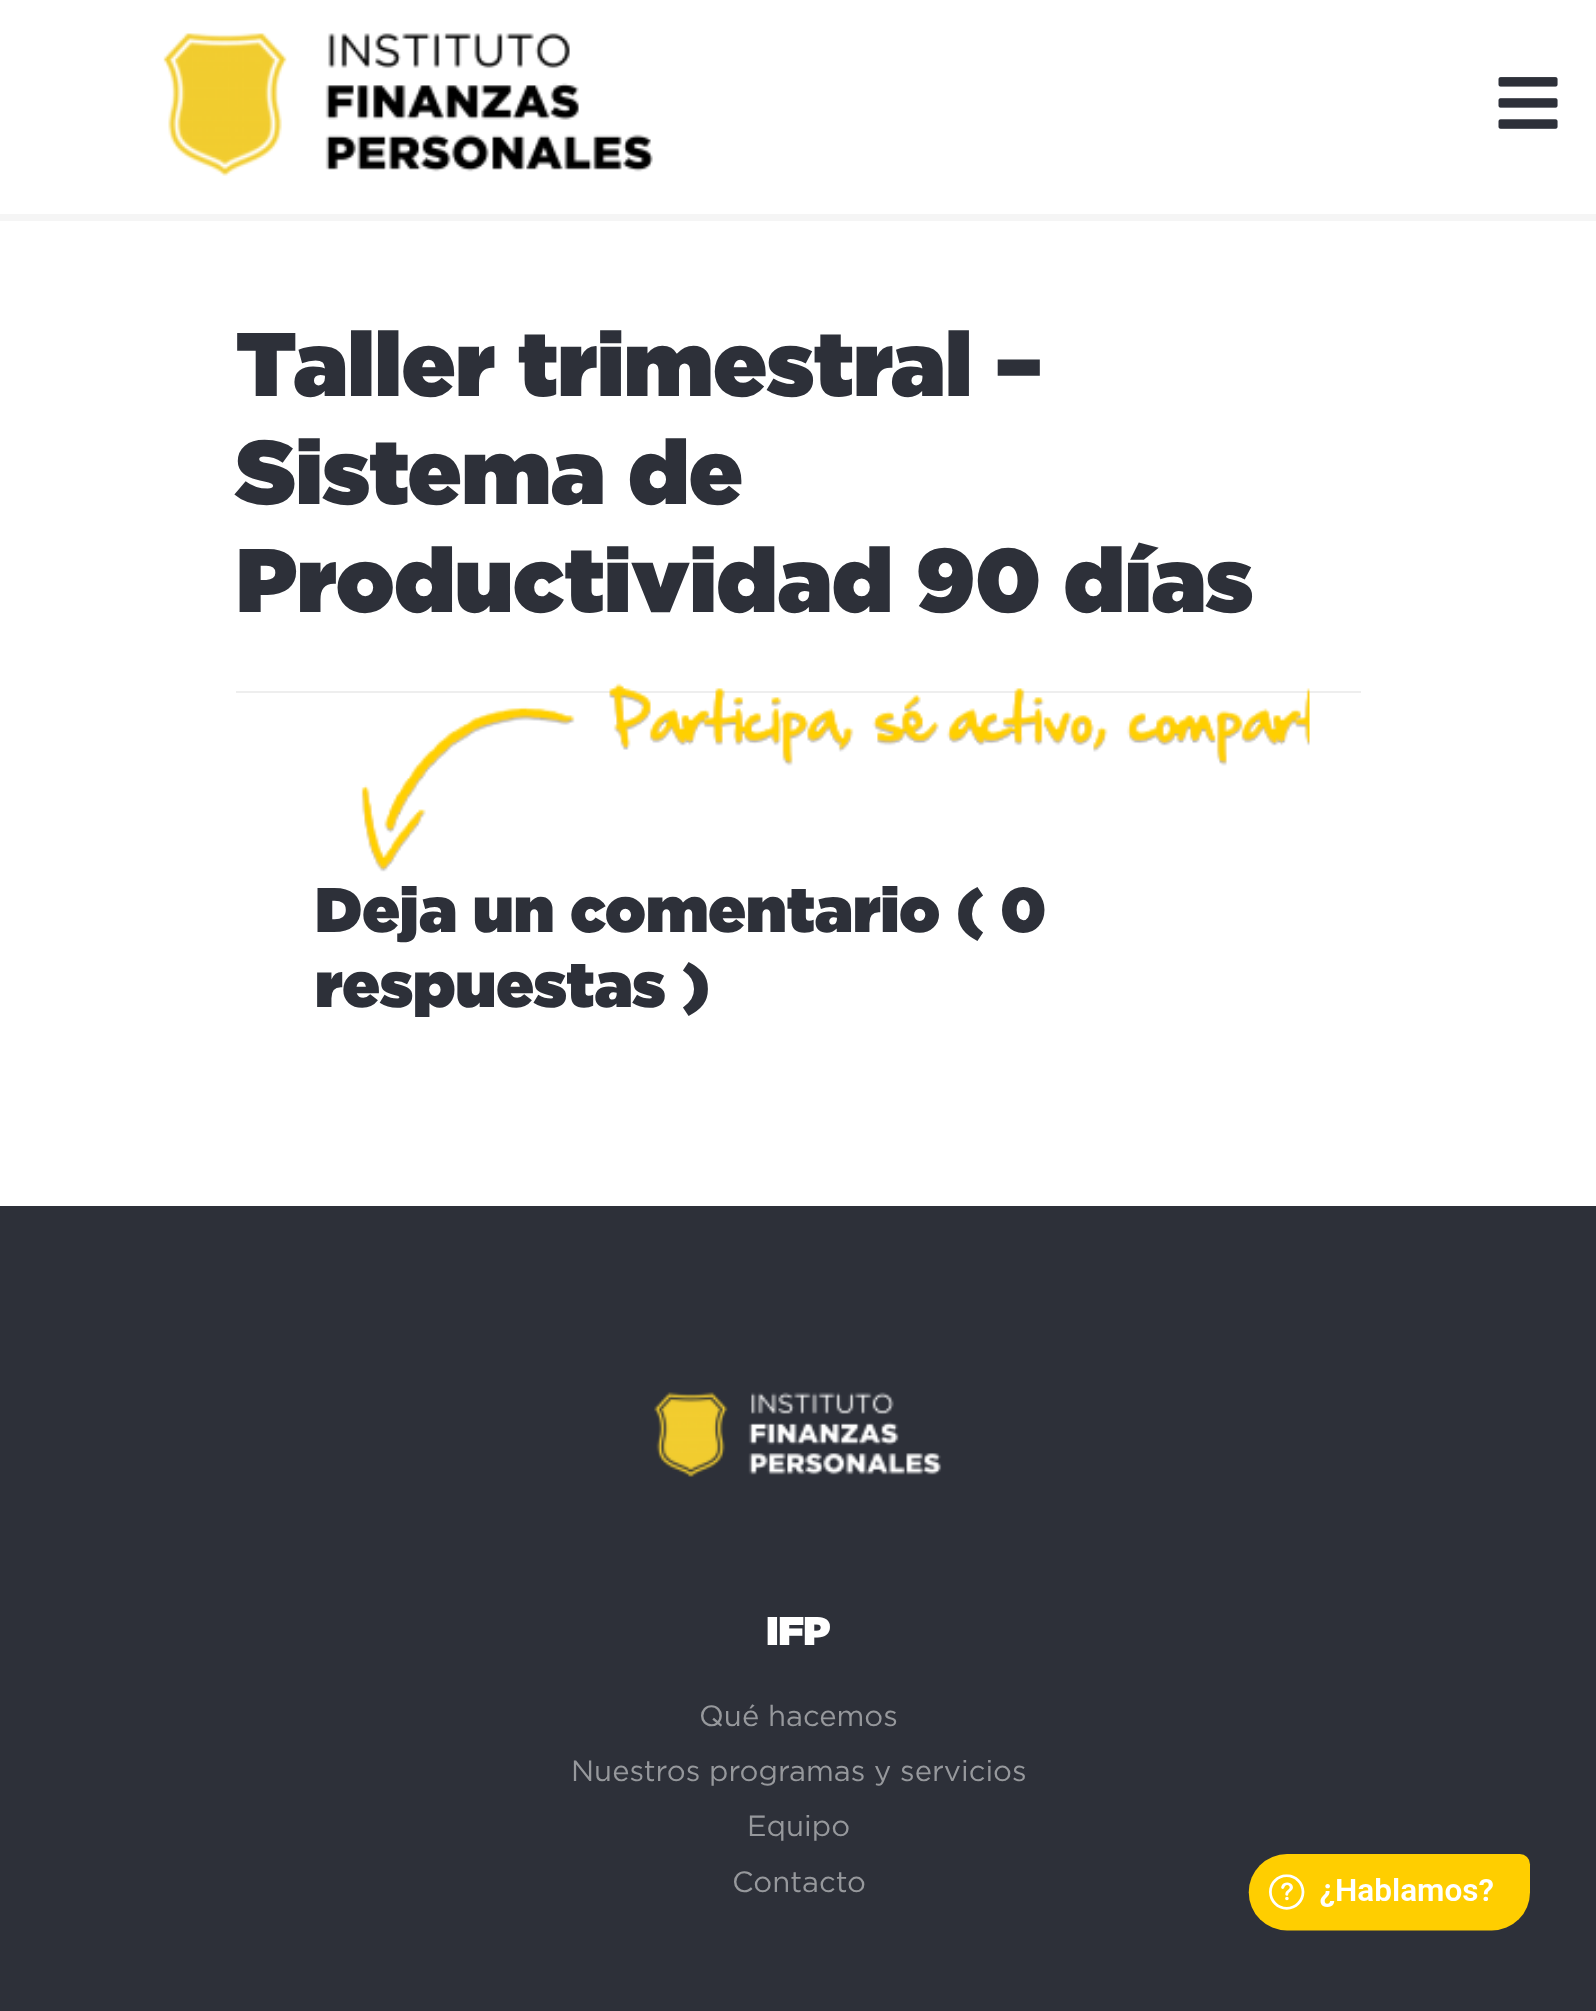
<svg xmlns="http://www.w3.org/2000/svg" width="1596" height="2011" viewBox="0 0 1596 2011">
  <rect width="100%" height="100%" fill="#ffffff"/>
  <rect x="0" y="214" width="1596" height="7" fill="#f5f5f5"/>
  <image x="163" y="33" width="490" height="143" href="img1.png"/>
  <image x="1498" y="77" width="60" height="52" href="img2.png"/>
  <rect x="236" y="691" width="1125" height="2" fill="#eeeeee"/>
  <text x="236" y="396" font-family="Gotham" font-size="90" fill="#2d3039">Taller trimestral –</text>
  <text x="236" y="504" font-family="Gotham" font-size="90" fill="#2d3039">Sistema de</text>
  <text x="236" y="612" font-family="Gotham" font-size="90" fill="#2d3039">Productividad 90 días</text>
  <image x="361" y="683" width="949" height="189" href="img3.png"/>
  <text x="315" y="932" font-family="Gotham" font-size="63" fill="#2d3039">Deja un comentario ( 0</text>
  <text x="315" y="1007" font-family="Gotham" font-size="63" fill="#2d3039">respuestas )</text>
  <rect x="0" y="1206" width="1596" height="805" fill="#2d3039"/>
  <image x="654" y="1392" width="288" height="85" href="img4.png"/>
  <text x="766" y="1645" font-family="Gotham" font-size="40" letter-spacing="-0.5" fill="#ffffff">IFP</text>
  <text x="699" y="1726" font-family="'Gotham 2'" font-size="29.25" fill="#96989c">Qué hacemos</text>
  <text x="571" y="1781" font-family="'Gotham 2'" font-size="29.25" fill="#96989c">Nuestros programas y servicios</text>
  <text x="747" y="1836" font-family="'Gotham 2'" font-size="29.25" fill="#96989c">Equipo</text>
  <text x="732" y="1892" font-family="'Gotham 2'" font-size="29.25" fill="#96989c">Contacto</text>
  <image x="1248" y="1854" width="283" height="77" href="img5.png"/>
</svg>
